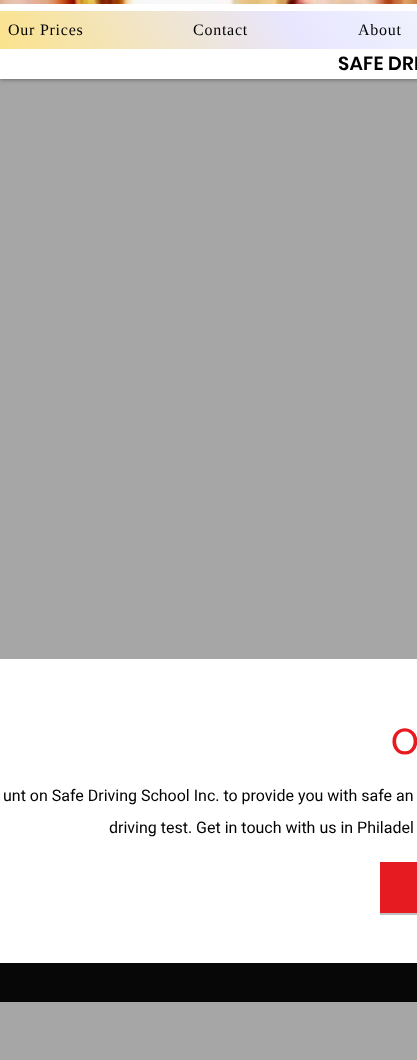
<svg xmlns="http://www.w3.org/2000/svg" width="417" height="1060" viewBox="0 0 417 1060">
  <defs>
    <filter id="blur1" x="-50%" y="-200%" width="200%" height="500%"><feGaussianBlur stdDeviation="2.5"/></filter>
    <linearGradient id="g1" gradientUnits="userSpaceOnUse" x1="-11" y1="343" x2="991" y2="-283"><stop offset="0" stop-color="#ffa685"/><stop offset="0.13" stop-color="#fce387"/><stop offset="0.36" stop-color="#e8e6ff"/><stop offset="0.48" stop-color="#f1f4fd"/><stop offset="0.59" stop-color="#ddebef"/><stop offset="0.76" stop-color="#d6e7ec"/><stop offset="0.86" stop-color="#f1f0ff"/><stop offset="0.99" stop-color="#a9a5e8"/></linearGradient>
    <filter id="blur2" x="-50%" y="-200%" width="200%" height="500%"><feGaussianBlur stdDeviation="0.5"/></filter>
  </defs>
  <rect width="100%" height="100%" fill="#a6a6a6"/>
  <rect x="0" y="0" width="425" height="79" fill="#000000" fill-opacity="0.5" filter="url(#blur1)"/>
  <rect x="0" y="4" width="417" height="75" fill="#ffffff"/>
  <image x="0" y="0" width="417" height="4" href="img1.png"/>
  <rect x="0" y="11" width="417" height="38" fill="url(#g1)"/>
  <text x="8" y="35" font-family="Liberation Serif" font-size="16" letter-spacing="0.75" fill="#000000">Our Prices</text>
  <text x="193" y="35" font-family="Liberation Serif" font-size="16" letter-spacing="0.75" fill="#000000">Contact</text>
  <text x="358" y="35" font-family="Liberation Serif" font-size="16" letter-spacing="0.75" fill="#000000">About</text>
  <text x="338" y="70" font-family="Poppins" font-size="19" font-weight="600" letter-spacing="0.25" fill="#000000">SAFE DRI</text>
  <rect x="0" y="659" width="417" height="304" fill="#ffffff"/>
  <text x="391" y="754" font-family="Cabin" font-size="36" fill="#e61b21">O</text>
  <text x="3" y="801" font-family="Roboto" font-size="16" fill="#000000">unt on Safe Driving School Inc. to provide you with safe an</text>
  <text x="109" y="833" font-family="Roboto" font-size="16" fill="#000000">driving test. Get in touch with us in Philadel</text>
  <rect x="380" y="864" width="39" height="51" fill="#000000" fill-opacity="0.25" filter="url(#blur2)"/>
  <rect x="380" y="862" width="37" height="51" fill="#e61b21"/>
  <rect x="0" y="963" width="417" height="39" fill="#070707"/>
</svg>
